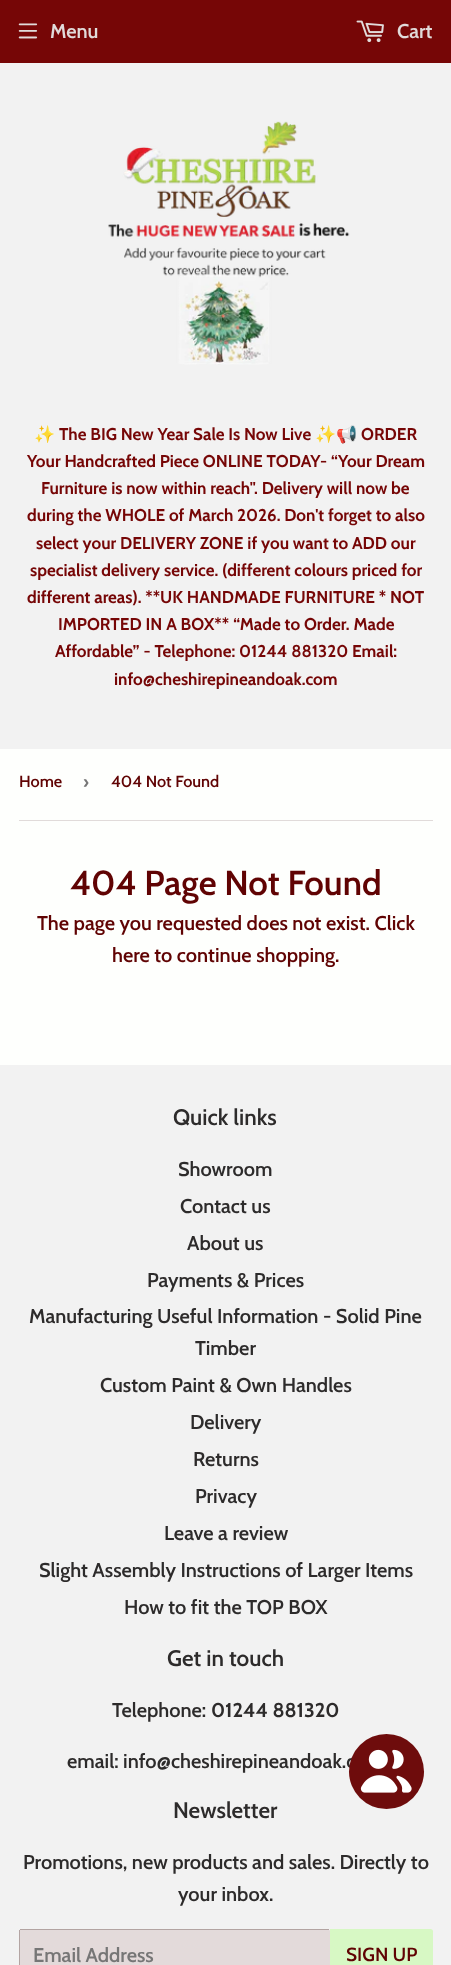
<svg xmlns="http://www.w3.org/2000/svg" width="451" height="1965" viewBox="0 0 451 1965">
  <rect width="100%" height="100%" fill="#fefffd"/>
  <rect x="0" y="0" width="451" height="63" fill="#760606"/>
  <image x="18" y="23" width="20" height="16" href="img1.png"/>
  <text x="50" y="38" font-family="Cabin" font-size="20" font-weight="600" fill="#e1dbda">Menu</text>
  <image x="356" y="20" width="28" height="23" href="img2.png"/>
  <text x="397" y="38" font-family="Cabin" font-size="20" font-weight="600" fill="#e1dbda">Cart</text>
  <rect x="0" y="63" width="451" height="686" fill="#f2f2f2"/>
  <image x="108" y="121" width="242" height="244" href="img3.png"/>
  <text x="34" y="440" font-family="Noto Color Emoji" font-size="17" font-weight="bold" fill="#760606">✨</text>
  <text x="59" y="440" font-family="Cabin" font-size="17" font-weight="bold" fill="#760606">The BIG New Year Sale Is Now Live</text>
  <text x="315" y="440" font-family="Noto Color Emoji" font-size="17" font-weight="bold" fill="#760606">✨📢</text>
  <text x="361" y="440" font-family="Cabin" font-size="17" font-weight="bold" fill="#760606">ORDER</text>
  <text x="27" y="467" font-family="Cabin" font-size="17" font-weight="bold" fill="#760606">Your Handcrafted Piece ONLINE TODAY- “Your Dream</text>
  <text x="41" y="494" font-family="Cabin" font-size="17" font-weight="bold" fill="#760606">Furniture is now within reach". Delivery will now be</text>
  <text x="27" y="521" font-family="Cabin" font-size="17" font-weight="bold" fill="#760606">during the WHOLE of March 2026. Don't forget to also</text>
  <text x="36" y="549" font-family="Cabin" font-size="17" font-weight="bold" fill="#760606">select your DELIVERY ZONE if you want to ADD our</text>
  <text x="30" y="576" font-family="Cabin" font-size="17" font-weight="bold" fill="#760606">specialist delivery service. (different colours priced for</text>
  <text x="27" y="603" font-family="Cabin" font-size="17" font-weight="bold" fill="#760606">different areas). **UK HANDMADE FURNITURE * NOT</text>
  <text x="58" y="630" font-family="Cabin" font-size="17" font-weight="bold" fill="#760606">IMPORTED IN A BOX** “Made to Order. Made</text>
  <text x="55" y="657" font-family="Cabin" font-size="17" font-weight="bold" fill="#760606">Affordable” - Telephone: 01244 881320 Email:</text>
  <text x="114" y="685" font-family="Cabin" font-size="17" font-weight="bold" fill="#760606">info@cheshirepineandoak.com</text>
  <rect x="19" y="820" width="414" height="1" fill="#e1dbda"/>
  <text x="19" y="787" font-family="Cabin" font-size="16.25" font-weight="600" fill="#600303">Home</text>
  <text x="83" y="788" font-family="Liberation Sans" font-size="19" font-weight="bold" fill="#767676">›</text>
  <text x="111" y="787" font-family="Cabin" font-size="16.25" font-weight="600" fill="#600303">404 Not Found</text>
  <text x="70" y="895" font-family="Cabin" font-size="34.75" font-weight="600" fill="#600303">404 Page Not Found</text>
  <text x="37" y="930" font-family="Cabin" font-size="20" font-weight="600" fill="#600303">The page you requested does not exist. Click</text>
  <text x="112" y="962" font-family="Cabin" font-size="20" font-weight="600" fill="#600303">here to continue shopping.</text>
  <rect x="0" y="1065" width="451" height="900" fill="#f2f2f2"/>
  <text x="173" y="1125" font-family="Cabin" font-size="22.5" font-weight="600" fill="#2d2b2b">Quick links</text>
  <text x="178" y="1176" font-family="Cabin" font-size="20" font-weight="600" fill="#2d2b2b">Showroom</text>
  <text x="180" y="1213" font-family="Cabin" font-size="20" font-weight="600" fill="#2d2b2b">Contact us</text>
  <text x="187" y="1250" font-family="Cabin" font-size="20" font-weight="600" fill="#2d2b2b">About us</text>
  <text x="147" y="1287" font-family="Cabin" font-size="20" font-weight="600" fill="#2d2b2b">Payments &amp; Prices</text>
  <text x="29" y="1323" font-family="Cabin" font-size="20" font-weight="600" fill="#2d2b2b">Manufacturing Useful Information - Solid Pine</text>
  <text x="195" y="1355" font-family="Cabin" font-size="20" font-weight="600" fill="#2d2b2b">Timber</text>
  <text x="100" y="1392" font-family="Cabin" font-size="20" font-weight="600" fill="#2d2b2b">Custom Paint &amp; Own Handles</text>
  <text x="190" y="1429" font-family="Cabin" font-size="20" font-weight="600" fill="#2d2b2b">Delivery</text>
  <text x="193" y="1466" font-family="Cabin" font-size="20" font-weight="600" fill="#2d2b2b">Returns</text>
  <text x="195" y="1503" font-family="Cabin" font-size="20" font-weight="600" fill="#2d2b2b">Privacy</text>
  <text x="164" y="1540" font-family="Cabin" font-size="20" font-weight="600" fill="#2d2b2b">Leave a review</text>
  <text x="39" y="1577" font-family="Cabin" font-size="20" font-weight="600" fill="#2d2b2b">Slight Assembly Instructions of Larger Items</text>
  <text x="124" y="1614" font-family="Cabin" font-size="20" font-weight="600" fill="#2d2b2b">How to fit the TOP BOX</text>
  <text x="167" y="1666" font-family="Cabin" font-size="22.5" font-weight="600" fill="#2d2b2b">Get in touch</text>
  <text x="112" y="1717" font-family="Cabin" font-size="20" font-weight="600" fill="#2d2b2b">Telephone:</text>
  <text x="211" y="1717" font-family="Cabin" font-size="20" font-weight="bold" fill="#2d2b2b">01244 881320</text>
  <text x="67" y="1768" font-family="Cabin" font-size="20" font-weight="600" fill="#2d2b2b">email: info@cheshirepineandoak.c</text>
  <text x="173" y="1818" font-family="Cabin" font-size="22.5" font-weight="600" fill="#2d2b2b">Newsletter</text>
  <text x="23" y="1869" font-family="Cabin" font-size="20" font-weight="600" fill="#2d2b2b">Promotions, new products and sales. Directly to</text>
  <text x="178" y="1901" font-family="Cabin" font-size="20" font-weight="600" fill="#2d2b2b">your inbox.</text>
  <rect x="19" y="1929" width="311" height="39" rx="2.5" fill="#e3dada"/>
  <rect x="20" y="1929" width="309" height="1" fill="#b3a4a2"/>
  <rect x="19" y="1930" width="1" height="35" fill="#b3a4a2"/>
  <text x="33" y="1962" font-family="Cabin" font-size="20" font-weight="600" fill="#767676">Email Address</text>
  <path d="M330 1929H430.5C432 1929 433 1930 433 1931.5V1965.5C433 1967 432 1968 430.5 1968H330Z" fill="#d7f8c4"/>
  <text x="346" y="1961" font-family="Cabin" font-size="19" font-weight="600" fill="#600303">SIGN UP</text>
  <circle cx="386.5" cy="1771.5" r="37.5" fill="#6e0c0c"/>
  <image x="360" y="1749" width="52" height="44" href="img4.png"/>
</svg>
